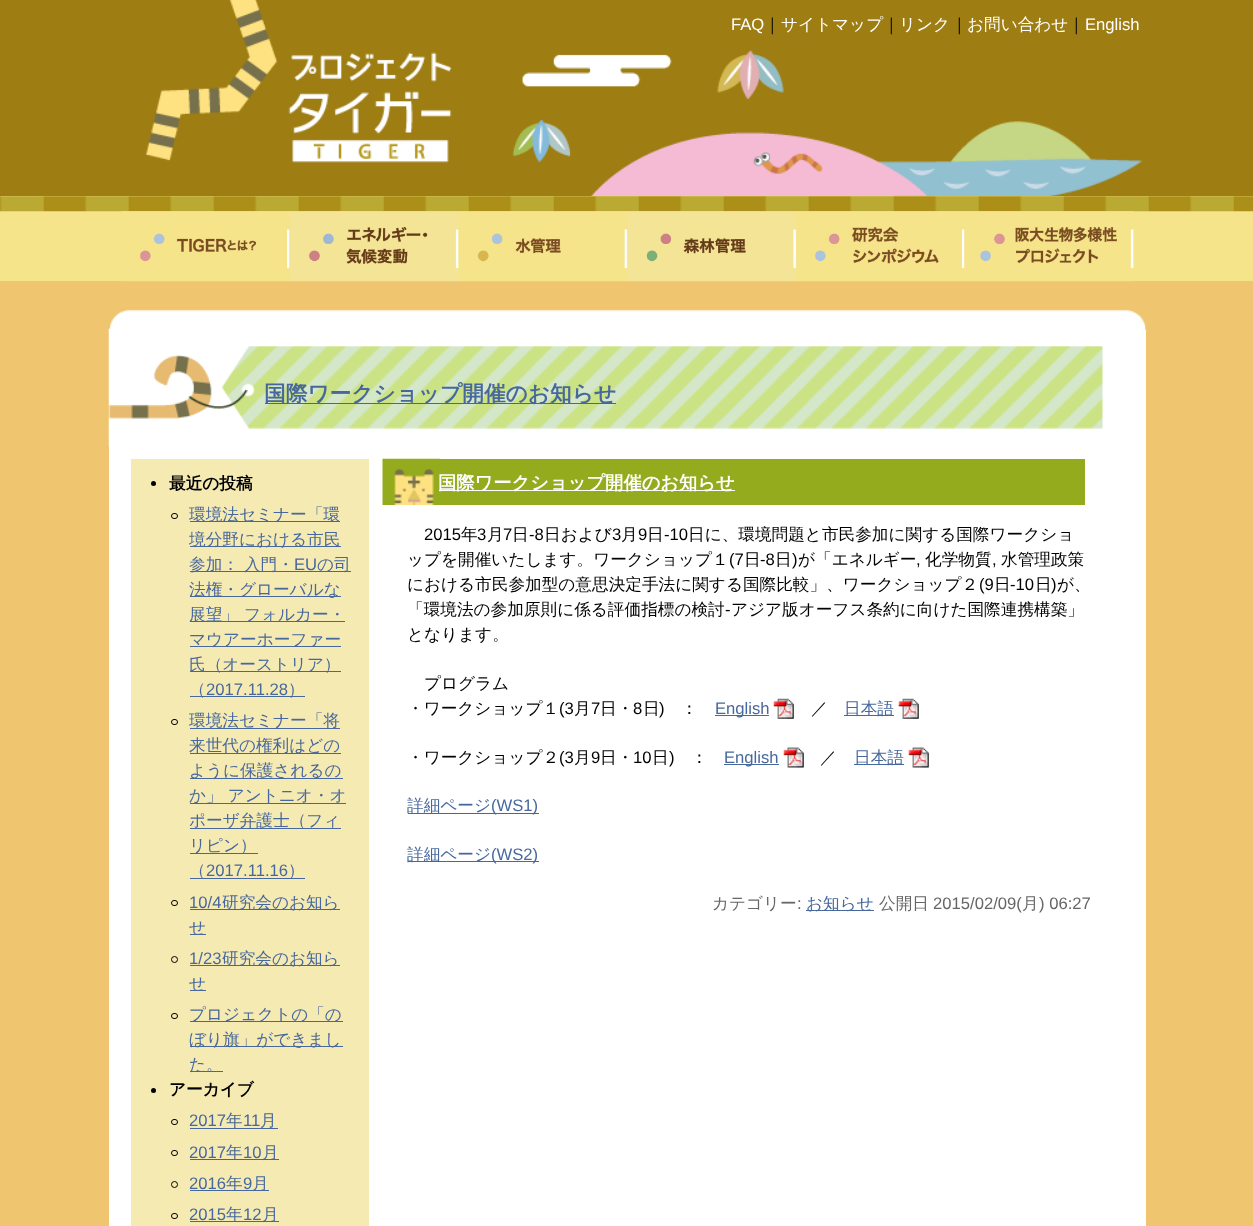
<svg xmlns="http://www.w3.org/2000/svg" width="1253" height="1226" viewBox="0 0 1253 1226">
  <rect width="100%" height="100%" fill="#efc56f"/>
  <image x="0" y="0" width="1253" height="196" href="img1.png"/>
  <image x="146" y="0" width="997" height="196" href="img2.png"/>
  <text x="731" y="30" font-family="Liberation Sans" font-size="16.65" fill="#ffffff">FAQ</text>
  <text x="764" y="30" font-family="WenQuanYi Zen Hei" font-size="16.65" font-weight="500" fill="#000000">｜</text>
  <text x="781" y="30" font-family="WenQuanYi Zen Hei" font-size="16.65" font-weight="500" fill="#ffffff">サイトマップ</text>
  <text x="883" y="30" font-family="WenQuanYi Zen Hei" font-size="16.65" font-weight="500" fill="#000000">｜</text>
  <text x="899" y="30" font-family="WenQuanYi Zen Hei" font-size="16.65" font-weight="500" fill="#ffffff">リンク</text>
  <text x="951" y="30" font-family="WenQuanYi Zen Hei" font-size="16.65" font-weight="500" fill="#000000">｜</text>
  <text x="967" y="30" font-family="WenQuanYi Zen Hei" font-size="16.65" font-weight="500" fill="#ffffff">お問い合わせ</text>
  <text x="1068" y="30" font-family="WenQuanYi Zen Hei" font-size="16.65" font-weight="500" fill="#000000">｜</text>
  <text x="1085" y="30" font-family="Liberation Sans" font-size="16.65" fill="#ffffff">English</text>
  <rect x="0" y="196" width="1253" height="85" fill="#f6e48b"/>
  <image x="0" y="196" width="1253" height="16" href="img3.png"/>
  <image x="121" y="211" width="169" height="71" href="img4.png"/>
  <image x="290" y="211" width="169" height="71" href="img5.png"/>
  <image x="458" y="211" width="170" height="71" href="img6.png"/>
  <image x="627" y="211" width="170" height="71" href="img7.png"/>
  <image x="796" y="211" width="169" height="71" href="img8.png"/>
  <image x="965" y="211" width="169" height="71" href="img9.png"/>
  <rect x="109" y="330" width="1037" height="896" fill="#ffffff"/>
  <image x="108" y="285" width="1039" height="45" href="img10.png"/>
  <image x="108" y="328" width="995" height="119" href="img11.png"/>
  <rect x="265" y="403" width="351" height="1" fill="#47689d"/>
  <text x="264" y="401" font-family="WenQuanYi Zen Hei" font-size="21.7" font-weight="bold" fill="#47689d">国際ワークショップ開催のお知らせ</text>
  <rect x="131" y="459" width="238" height="767" fill="#f6eab3"/>
  <circle cx="153.5" cy="483.5" r="2.5" fill="#000000"/>
  <text x="169" y="489" font-family="WenQuanYi Zen Hei" font-size="16.65" font-weight="bold" fill="#000000">最近の投稿</text>
  <rect x="171.5" y="513.5" width="6" height="5" rx="2.5" fill="none" stroke="#000000"/>
  <rect x="190" y="521" width="150" height="1" fill="#47689d"/>
  <text x="189" y="520" font-family="WenQuanYi Zen Hei" font-size="16.65" font-weight="500" fill="#47689d">環境法セミナー「環</text>
  <rect x="190" y="546" width="151" height="1" fill="#47689d"/>
  <text x="189" y="545" font-family="WenQuanYi Zen Hei" font-size="16.65" font-weight="500" fill="#47689d">境分野における市民</text>
  <rect x="190" y="571" width="161" height="1" fill="#47689d"/>
  <text x="189" y="570" font-family="WenQuanYi Zen Hei" font-size="16.65" font-weight="500" fill="#47689d">参加： 入門・</text>
  <text x="294" y="570" font-family="Liberation Sans" font-size="16.65" fill="#47689d">EU</text>
  <text x="317" y="570" font-family="WenQuanYi Zen Hei" font-size="16.65" font-weight="500" fill="#47689d">の司</text>
  <rect x="190" y="596" width="151" height="1" fill="#47689d"/>
  <text x="189" y="595" font-family="WenQuanYi Zen Hei" font-size="16.65" font-weight="500" fill="#47689d">法権・グローバルな</text>
  <rect x="190" y="621" width="155" height="1" fill="#47689d"/>
  <text x="189" y="620" font-family="WenQuanYi Zen Hei" font-size="16.65" font-weight="500" fill="#47689d">展望」 フォルカー・</text>
  <rect x="190" y="646" width="151" height="1" fill="#47689d"/>
  <text x="189" y="645" font-family="WenQuanYi Zen Hei" font-size="16.65" font-weight="500" fill="#47689d">マウアーホーファー</text>
  <rect x="190" y="671" width="151" height="1" fill="#47689d"/>
  <text x="189" y="670" font-family="WenQuanYi Zen Hei" font-size="16.65" font-weight="500" fill="#47689d">氏（オーストリア）</text>
  <rect x="190" y="696" width="115" height="1" fill="#47689d"/>
  <text x="189" y="695" font-family="WenQuanYi Zen Hei" font-size="16.65" font-weight="500" fill="#47689d">（</text>
  <text x="206" y="695" font-family="Liberation Sans" font-size="16.65" fill="#47689d">2017.11.28</text>
  <text x="288" y="695" font-family="WenQuanYi Zen Hei" font-size="16.65" font-weight="500" fill="#47689d">）</text>
  <rect x="171.5" y="719.5" width="6" height="5" rx="2.5" fill="none" stroke="#000000"/>
  <rect x="190" y="728" width="150" height="1" fill="#47689d"/>
  <text x="189" y="726" font-family="WenQuanYi Zen Hei" font-size="16.65" font-weight="500" fill="#47689d">環境法セミナー「将</text>
  <rect x="190" y="753" width="151" height="1" fill="#47689d"/>
  <text x="189" y="751" font-family="WenQuanYi Zen Hei" font-size="16.65" font-weight="500" fill="#47689d">来世代の権利はどの</text>
  <rect x="190" y="778" width="153" height="1" fill="#47689d"/>
  <text x="189" y="776" font-family="WenQuanYi Zen Hei" font-size="16.65" font-weight="500" fill="#47689d">ように保護されるの</text>
  <rect x="190" y="803" width="156" height="1" fill="#47689d"/>
  <text x="189" y="801" font-family="WenQuanYi Zen Hei" font-size="16.65" font-weight="500" fill="#47689d">か」 アントニオ・オ</text>
  <rect x="190" y="828" width="151" height="1" fill="#47689d"/>
  <text x="189" y="826" font-family="WenQuanYi Zen Hei" font-size="16.65" font-weight="500" fill="#47689d">ポーザ弁護士（フィ</text>
  <rect x="190" y="853" width="68" height="1" fill="#47689d"/>
  <text x="189" y="851" font-family="WenQuanYi Zen Hei" font-size="16.65" font-weight="500" fill="#47689d">リピン）</text>
  <rect x="190" y="878" width="115" height="1" fill="#47689d"/>
  <text x="189" y="876" font-family="WenQuanYi Zen Hei" font-size="16.65" font-weight="500" fill="#47689d">（</text>
  <text x="206" y="876" font-family="Liberation Sans" font-size="16.65" fill="#47689d">2017.11.16</text>
  <text x="288" y="876" font-family="WenQuanYi Zen Hei" font-size="16.65" font-weight="500" fill="#47689d">）</text>
  <rect x="171.5" y="900.5" width="6" height="5" rx="2.5" fill="none" stroke="#000000"/>
  <text x="189" y="908" font-family="Liberation Sans" font-size="16.65" fill="#47689d">10/4</text>
  <rect x="190" y="909" width="150" height="1" fill="#47689d"/>
  <text x="222" y="908" font-family="WenQuanYi Zen Hei" font-size="16.65" font-weight="500" fill="#47689d">研究会のお知ら</text>
  <rect x="190" y="934" width="16" height="1" fill="#47689d"/>
  <text x="189" y="933" font-family="WenQuanYi Zen Hei" font-size="16.65" font-weight="500" fill="#47689d">せ</text>
  <circle cx="174.5" cy="959.5" r="3" fill="none" stroke="#000000"/>
  <text x="189" y="964" font-family="Liberation Sans" font-size="16.65" fill="#47689d">1/23</text>
  <rect x="190" y="965" width="150" height="1" fill="#47689d"/>
  <text x="222" y="964" font-family="WenQuanYi Zen Hei" font-size="16.65" font-weight="500" fill="#47689d">研究会のお知ら</text>
  <rect x="190" y="990" width="16" height="1" fill="#47689d"/>
  <text x="189" y="989" font-family="WenQuanYi Zen Hei" font-size="16.65" font-weight="500" fill="#47689d">せ</text>
  <rect x="171.5" y="1013.5" width="6" height="5" rx="2.5" fill="none" stroke="#000000"/>
  <rect x="190" y="1021" width="153" height="1" fill="#47689d"/>
  <text x="189" y="1020" font-family="WenQuanYi Zen Hei" font-size="16.65" font-weight="500" fill="#47689d">プロジェクトの「の</text>
  <rect x="190" y="1046" width="153" height="1" fill="#47689d"/>
  <text x="189" y="1045" font-family="WenQuanYi Zen Hei" font-size="16.65" font-weight="500" fill="#47689d">ぼり旗」ができまし</text>
  <rect x="190" y="1071" width="33" height="1" fill="#47689d"/>
  <text x="189" y="1070" font-family="WenQuanYi Zen Hei" font-size="16.65" font-weight="500" fill="#47689d">た。</text>
  <circle cx="153.5" cy="1090.5" r="2.5" fill="#000000"/>
  <text x="169" y="1095" font-family="WenQuanYi Zen Hei" font-size="16.65" font-weight="bold" fill="#000000">アーカイブ</text>
  <rect x="171.5" y="1119.5" width="6" height="5" rx="2.5" fill="none" stroke="#000000"/>
  <text x="189" y="1126" font-family="Liberation Sans" font-size="16.65" fill="#47689d">2017</text>
  <text x="226" y="1126" font-family="WenQuanYi Zen Hei" font-size="16.65" font-weight="500" fill="#47689d">年</text>
  <text x="243" y="1126" font-family="Liberation Sans" font-size="16.65" fill="#47689d">11</text>
  <rect x="190" y="1128" width="88" height="1" fill="#47689d"/>
  <text x="260" y="1126" font-family="WenQuanYi Zen Hei" font-size="16.65" font-weight="500" fill="#47689d">月</text>
  <rect x="171.5" y="1150.5" width="6" height="5" rx="2.5" fill="none" stroke="#000000"/>
  <text x="189" y="1158" font-family="Liberation Sans" font-size="16.65" fill="#47689d">2017</text>
  <rect x="190" y="1159" width="89" height="1" fill="#47689d"/>
  <text x="226" y="1158" font-family="WenQuanYi Zen Hei" font-size="16.65" font-weight="500" fill="#47689d">年</text>
  <text x="243" y="1158" font-family="Liberation Sans" font-size="16.65" fill="#47689d">10</text>
  <text x="262" y="1158" font-family="WenQuanYi Zen Hei" font-size="16.65" font-weight="500" fill="#47689d">月</text>
  <circle cx="174.5" cy="1184.5" r="3" fill="none" stroke="#000000"/>
  <text x="189" y="1189" font-family="Liberation Sans" font-size="16.65" fill="#47689d">2016</text>
  <rect x="190" y="1190" width="79" height="1" fill="#47689d"/>
  <text x="226" y="1189" font-family="WenQuanYi Zen Hei" font-size="16.65" font-weight="500" fill="#47689d">年</text>
  <text x="243" y="1189" font-family="Liberation Sans" font-size="16.65" fill="#47689d">9</text>
  <text x="252" y="1189" font-family="WenQuanYi Zen Hei" font-size="16.65" font-weight="500" fill="#47689d">月</text>
  <rect x="171.5" y="1213.5" width="6" height="5" rx="2.5" fill="none" stroke="#000000"/>
  <text x="189" y="1220" font-family="Liberation Sans" font-size="16.65" fill="#47689d">2015</text>
  <rect x="190" y="1221" width="89" height="1" fill="#47689d"/>
  <text x="226" y="1220" font-family="WenQuanYi Zen Hei" font-size="16.65" font-weight="500" fill="#47689d">年</text>
  <text x="243" y="1220" font-family="Liberation Sans" font-size="16.65" fill="#47689d">12</text>
  <text x="262" y="1220" font-family="WenQuanYi Zen Hei" font-size="16.65" font-weight="500" fill="#47689d">月</text>
  <rect x="440" y="459" width="645" height="46" fill="#95ab1e"/>
  <image x="382" y="458" width="58" height="47" href="img12.png"/>
  <rect x="439" y="490" width="296" height="1" fill="#ffffff"/>
  <text x="438" y="489" font-family="WenQuanYi Zen Hei" font-size="18.3" font-weight="bold" fill="#ffffff">国際ワークショップ開催のお知らせ</text>
  <text x="424" y="540" font-family="Liberation Sans" font-size="16.65" fill="#000000">2015</text>
  <text x="461" y="540" font-family="WenQuanYi Zen Hei" font-size="16.65" font-weight="500" fill="#000000">年</text>
  <text x="477" y="540" font-family="Liberation Sans" font-size="16.65" fill="#000000">3</text>
  <text x="487" y="540" font-family="WenQuanYi Zen Hei" font-size="16.65" font-weight="500" fill="#000000">月</text>
  <text x="503" y="540" font-family="Liberation Sans" font-size="16.65" fill="#000000">7</text>
  <text x="512" y="540" font-family="WenQuanYi Zen Hei" font-size="16.65" font-weight="500" fill="#000000">日</text>
  <text x="529" y="540" font-family="Liberation Sans" font-size="16.65" fill="#000000">-8</text>
  <text x="544" y="540" font-family="WenQuanYi Zen Hei" font-size="16.65" font-weight="500" fill="#000000">日および</text>
  <text x="612" y="540" font-family="Liberation Sans" font-size="16.65" fill="#000000">3</text>
  <text x="621" y="540" font-family="WenQuanYi Zen Hei" font-size="16.65" font-weight="500" fill="#000000">月</text>
  <text x="638" y="540" font-family="Liberation Sans" font-size="16.65" fill="#000000">9</text>
  <text x="647" y="540" font-family="WenQuanYi Zen Hei" font-size="16.65" font-weight="500" fill="#000000">日</text>
  <text x="664" y="540" font-family="Liberation Sans" font-size="16.65" fill="#000000">-10</text>
  <text x="688" y="540" font-family="WenQuanYi Zen Hei" font-size="16.65" font-weight="500" fill="#000000">日に、環境問題と市民参加に関する国際ワークショ</text>
  <text x="407" y="565" font-family="WenQuanYi Zen Hei" font-size="16.65" font-weight="500" fill="#000000">ップを開催いたします。ワークショップ１</text>
  <text x="729" y="565" font-family="Liberation Sans" font-size="16.65" fill="#000000">(7</text>
  <text x="744" y="565" font-family="WenQuanYi Zen Hei" font-size="16.65" font-weight="500" fill="#000000">日</text>
  <text x="760" y="565" font-family="Liberation Sans" font-size="16.65" fill="#000000">-8</text>
  <text x="775" y="565" font-family="WenQuanYi Zen Hei" font-size="16.65" font-weight="500" fill="#000000">日</text>
  <text x="792" y="565" font-family="Liberation Sans" font-size="16.65" fill="#000000">)</text>
  <text x="798" y="565" font-family="WenQuanYi Zen Hei" font-size="16.65" font-weight="500" fill="#000000">が「エネルギー</text>
  <text x="916" y="565" font-family="Liberation Sans" font-size="16.65" fill="#000000">,</text>
  <text x="925" y="565" font-family="WenQuanYi Zen Hei" font-size="16.65" font-weight="500" fill="#000000">化学物質</text>
  <text x="992" y="565" font-family="Liberation Sans" font-size="16.65" fill="#000000">,</text>
  <text x="1001" y="565" font-family="WenQuanYi Zen Hei" font-size="16.65" font-weight="500" fill="#000000">水管理政策</text>
  <text x="407" y="590" font-family="WenQuanYi Zen Hei" font-size="16.65" font-weight="500" fill="#000000">における市民参加型の意思決定手法に関する国際比較」、ワークショップ２</text>
  <text x="979" y="590" font-family="Liberation Sans" font-size="16.65" fill="#000000">(9</text>
  <text x="994" y="590" font-family="WenQuanYi Zen Hei" font-size="16.65" font-weight="500" fill="#000000">日</text>
  <text x="1010" y="590" font-family="Liberation Sans" font-size="16.65" fill="#000000">-10</text>
  <text x="1035" y="590" font-family="WenQuanYi Zen Hei" font-size="16.65" font-weight="500" fill="#000000">日</text>
  <text x="1051" y="590" font-family="Liberation Sans" font-size="16.65" fill="#000000">)</text>
  <text x="1057" y="590" font-family="WenQuanYi Zen Hei" font-size="16.65" font-weight="500" fill="#000000">が、</text>
  <text x="407" y="615" font-family="WenQuanYi Zen Hei" font-size="16.65" font-weight="500" fill="#000000">「環境法の参加原則に係る評価指標の検討</text>
  <text x="725" y="615" font-family="Liberation Sans" font-size="16.65" fill="#000000">-</text>
  <text x="731" y="615" font-family="WenQuanYi Zen Hei" font-size="16.65" font-weight="500" fill="#000000">アジア版オーフス条約に向けた国際連携構築」</text>
  <text x="407" y="640" font-family="WenQuanYi Zen Hei" font-size="16.65" font-weight="500" fill="#000000">となります。</text>
  <text x="424" y="689" font-family="WenQuanYi Zen Hei" font-size="16.65" font-weight="500" fill="#000000">プログラム</text>
  <text x="407" y="714" font-family="WenQuanYi Zen Hei" font-size="16.65" font-weight="500" fill="#000000">・ワークショップ１</text>
  <text x="559" y="714" font-family="Liberation Sans" font-size="16.65" fill="#000000">(3</text>
  <text x="574" y="714" font-family="WenQuanYi Zen Hei" font-size="16.65" font-weight="500" fill="#000000">月</text>
  <text x="591" y="714" font-family="Liberation Sans" font-size="16.65" fill="#000000">7</text>
  <text x="600" y="714" font-family="WenQuanYi Zen Hei" font-size="16.65" font-weight="500" fill="#000000">日・</text>
  <text x="633" y="714" font-family="Liberation Sans" font-size="16.65" fill="#000000">8</text>
  <text x="643" y="714" font-family="WenQuanYi Zen Hei" font-size="16.65" font-weight="500" fill="#000000">日</text>
  <text x="659" y="714" font-family="Liberation Sans" font-size="16.65" fill="#000000">)</text>
  <text x="681" y="714" font-family="WenQuanYi Zen Hei" font-size="16.65" font-weight="500" fill="#000000">：</text>
  <rect x="715" y="715" width="54" height="1" fill="#47689d"/>
  <text x="715" y="714" font-family="Liberation Sans" font-size="16.65" fill="#47689d">English</text>
  <image x="773" y="698" width="21" height="21" href="img13.png"/>
  <text x="811" y="714" font-family="WenQuanYi Zen Hei" font-size="16.65" font-weight="500" fill="#000000">／</text>
  <rect x="844" y="715" width="50" height="1" fill="#47689d"/>
  <text x="844" y="714" font-family="WenQuanYi Zen Hei" font-size="16.65" font-weight="500" fill="#47689d">日本語</text>
  <image x="898" y="698" width="21" height="21" href="img13.png"/>
  <text x="407" y="763" font-family="WenQuanYi Zen Hei" font-size="16.65" font-weight="500" fill="#000000">・ワークショップ２</text>
  <text x="559" y="763" font-family="Liberation Sans" font-size="16.65" fill="#000000">(3</text>
  <text x="574" y="763" font-family="WenQuanYi Zen Hei" font-size="16.65" font-weight="500" fill="#000000">月</text>
  <text x="591" y="763" font-family="Liberation Sans" font-size="16.65" fill="#000000">9</text>
  <text x="600" y="763" font-family="WenQuanYi Zen Hei" font-size="16.65" font-weight="500" fill="#000000">日・</text>
  <text x="633" y="763" font-family="Liberation Sans" font-size="16.65" fill="#000000">10</text>
  <text x="652" y="763" font-family="WenQuanYi Zen Hei" font-size="16.65" font-weight="500" fill="#000000">日</text>
  <text x="669" y="763" font-family="Liberation Sans" font-size="16.65" fill="#000000">)</text>
  <text x="691" y="763" font-family="WenQuanYi Zen Hei" font-size="16.65" font-weight="500" fill="#000000">：</text>
  <rect x="724" y="764" width="55" height="1" fill="#47689d"/>
  <text x="724" y="763" font-family="Liberation Sans" font-size="16.65" fill="#47689d">English</text>
  <image x="783" y="747" width="21" height="21" href="img14.png"/>
  <text x="820" y="763" font-family="WenQuanYi Zen Hei" font-size="16.65" font-weight="500" fill="#000000">／</text>
  <rect x="854" y="764" width="50" height="1" fill="#47689d"/>
  <text x="854" y="763" font-family="WenQuanYi Zen Hei" font-size="16.65" font-weight="500" fill="#47689d">日本語</text>
  <image x="908" y="747" width="21" height="21" href="img15.png"/>
  <rect x="408" y="813" width="131" height="1" fill="#47689d"/>
  <text x="407" y="811" font-family="WenQuanYi Zen Hei" font-size="16.65" font-weight="500" fill="#47689d">詳細ページ</text>
  <text x="491" y="811" font-family="Liberation Sans" font-size="16.65" fill="#47689d">(WS1)</text>
  <rect x="408" y="861" width="131" height="1" fill="#47689d"/>
  <text x="407" y="860" font-family="WenQuanYi Zen Hei" font-size="16.65" font-weight="500" fill="#47689d">詳細ページ</text>
  <text x="491" y="860" font-family="Liberation Sans" font-size="16.65" fill="#47689d">(WS2)</text>
  <text x="712" y="909" font-family="WenQuanYi Zen Hei" font-size="16.65" font-weight="500" fill="#666666">カテゴリー</text>
  <text x="797" y="909" font-family="Liberation Sans" font-size="16.65" fill="#666666">:</text>
  <rect x="806" y="910" width="68" height="1" fill="#47689d"/>
  <text x="806" y="909" font-family="WenQuanYi Zen Hei" font-size="16.65" font-weight="500" fill="#47689d">お知らせ</text>
  <text x="879" y="909" font-family="WenQuanYi Zen Hei" font-size="16.65" font-weight="500" fill="#666666">公開日</text>
  <text x="933" y="909" font-family="Liberation Sans" font-size="16.65" fill="#666666">2015/02/09(</text>
  <text x="1022" y="909" font-family="WenQuanYi Zen Hei" font-size="16.65" font-weight="500" fill="#666666">月</text>
  <text x="1039" y="909" font-family="Liberation Sans" font-size="16.65" fill="#666666">) 06:27</text>
</svg>
